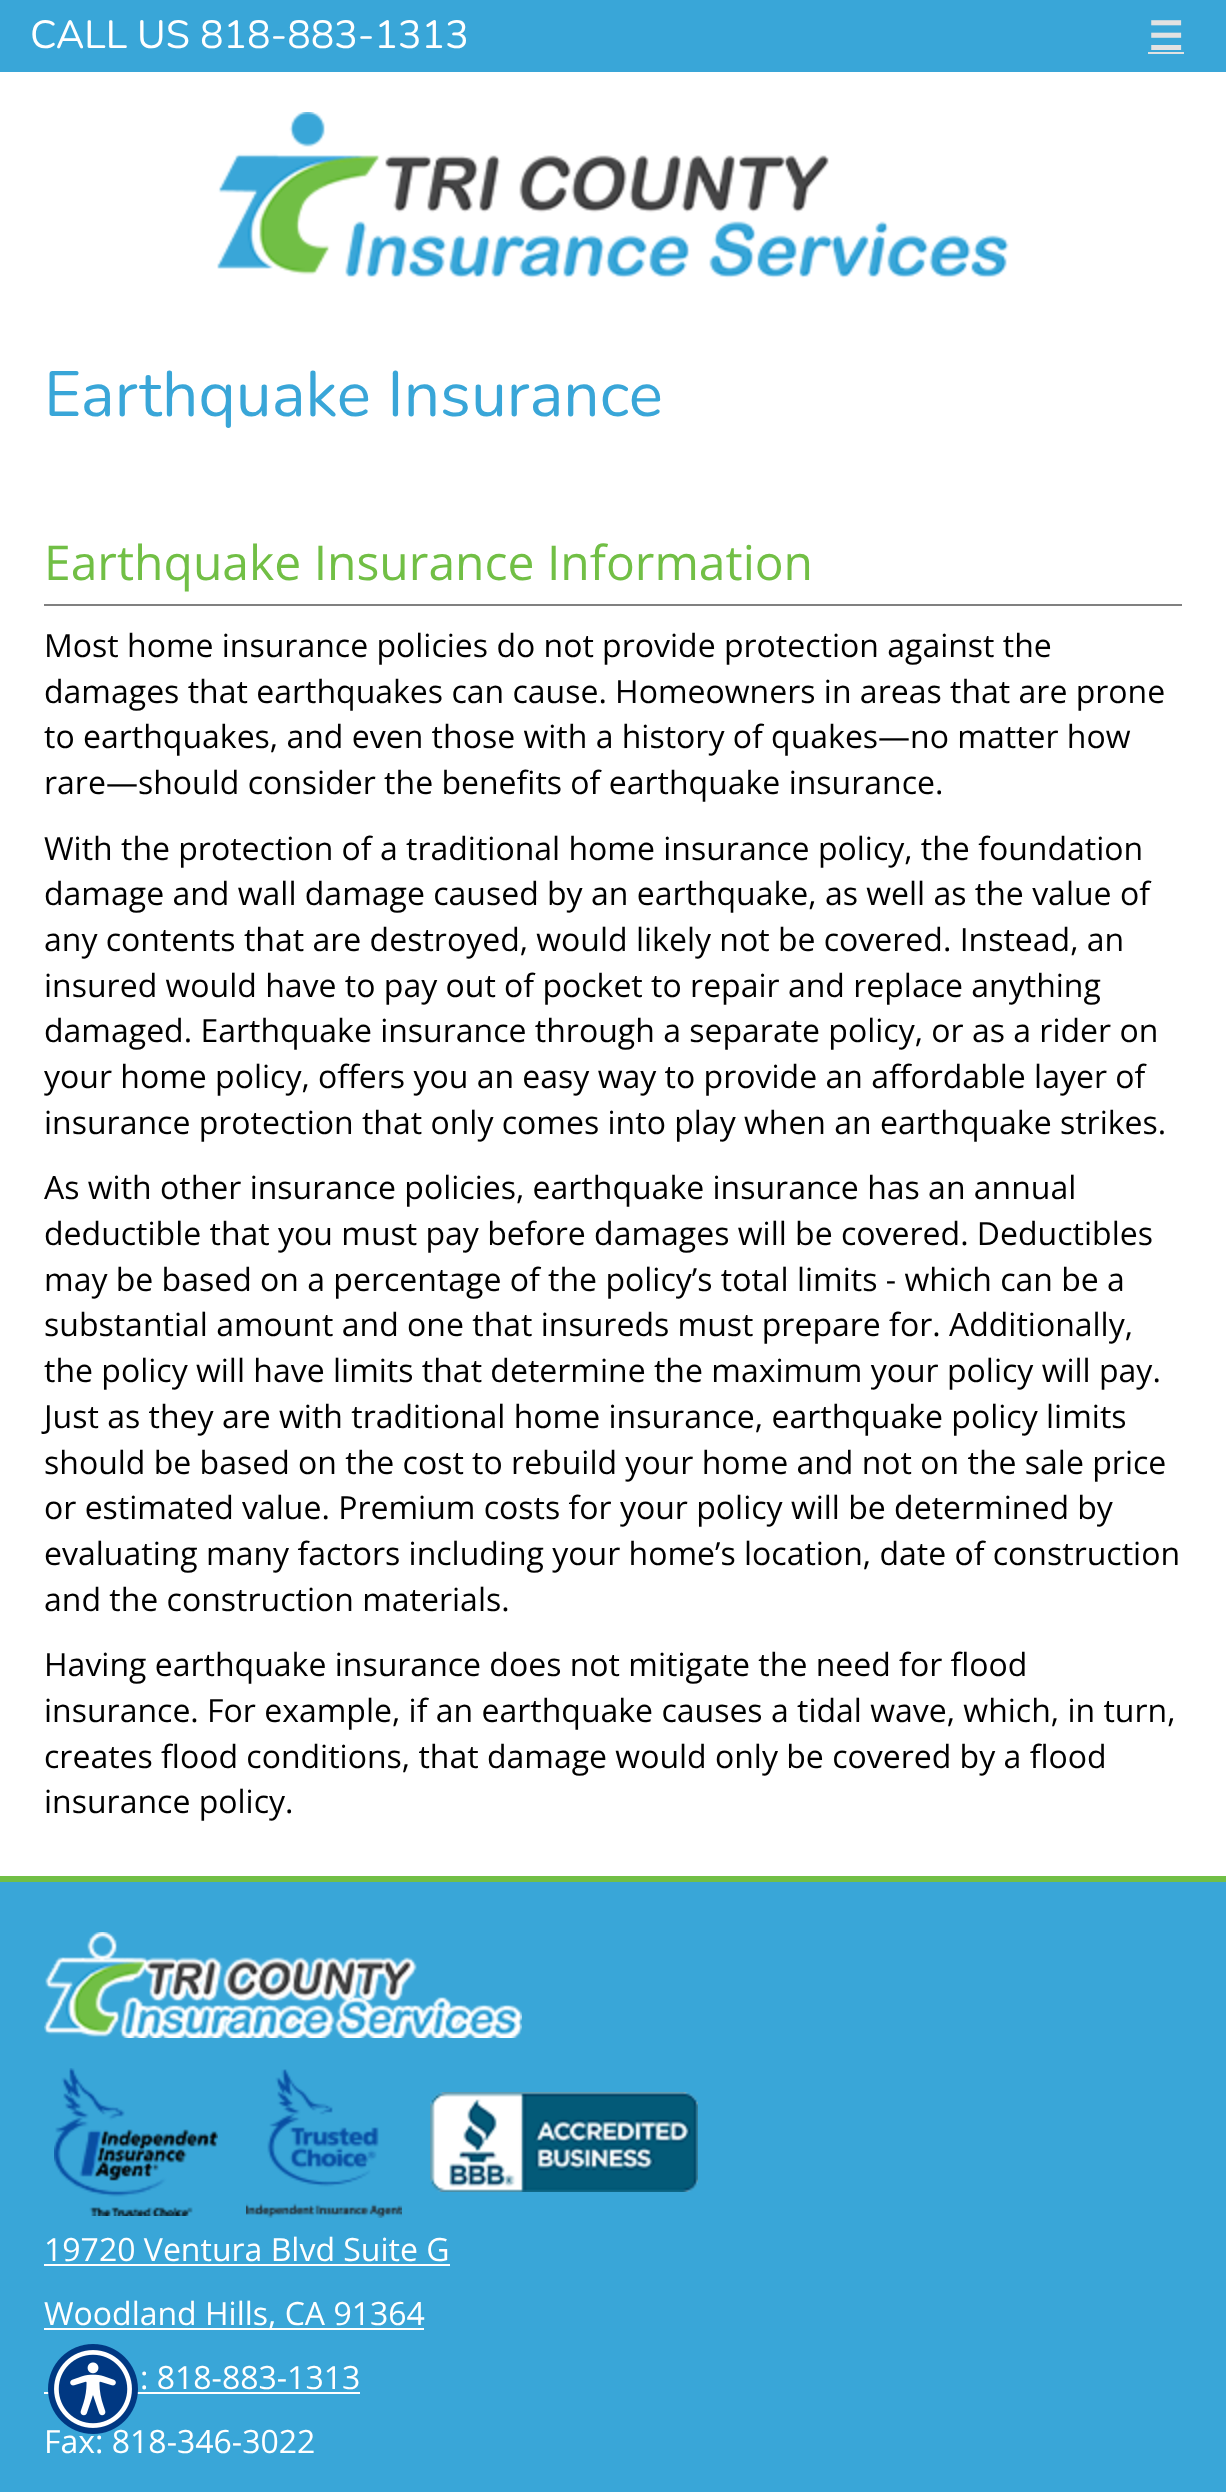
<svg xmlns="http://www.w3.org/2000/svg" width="1226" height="2492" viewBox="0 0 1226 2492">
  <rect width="100%" height="100%" fill="#ffffff"/>
  <rect x="0" y="0" width="1226" height="72" fill="#39a6d8"/>
  <text x="30" y="48" font-family="Nunito" font-size="39.25" font-weight="200" fill="#ffffff">CALL US 818-883-1313</text>
  <text x="1148" y="50" font-family="DejaVu Sans" font-size="39.25" font-weight="bold" fill="#e2e2e2">☰</text>
  <rect x="1148" y="52" width="36" height="2" fill="#e2e2e2"/>
  <image x="217" y="112" width="792" height="167" href="img1.png"/>
  <text x="44" y="416" font-family="Nunito" font-size="64" font-weight="200" fill="#39a6d8">Earthquake Insurance</text>
  <rect x="44" y="604" width="1138" height="2" fill="#808080"/>
  <text x="44" y="580" font-family="Open Sans" font-size="48" fill="#71bf45">Earthquake Insurance Information</text>
  <text x="44" y="657" font-family="Open Sans" font-size="32" fill="#000000">Most home insurance policies do not provide protection against the</text>
  <text x="44" y="703" font-family="Open Sans" font-size="32" fill="#000000">damages that earthquakes can cause. Homeowners in areas that are prone</text>
  <text x="44" y="748" font-family="Open Sans" font-size="32" fill="#000000">to earthquakes, and even those with a history of quakes—no matter how</text>
  <text x="44" y="794" font-family="Open Sans" font-size="32" fill="#000000">rare—should consider the benefits of earthquake insurance.</text>
  <text x="44" y="860" font-family="Open Sans" font-size="32" fill="#000000">With the protection of a traditional home insurance policy, the foundation</text>
  <text x="44" y="905" font-family="Open Sans" font-size="32" fill="#000000">damage and wall damage caused by an earthquake, as well as the value of</text>
  <text x="44" y="951" font-family="Open Sans" font-size="32" fill="#000000">any contents that are destroyed, would likely not be covered. Instead, an</text>
  <text x="44" y="997" font-family="Open Sans" font-size="32" fill="#000000">insured would have to pay out of pocket to repair and replace anything</text>
  <text x="44" y="1042" font-family="Open Sans" font-size="32" fill="#000000">damaged. Earthquake insurance through a separate policy, or as a rider on</text>
  <text x="44" y="1088" font-family="Open Sans" font-size="32" fill="#000000">your home policy, offers you an easy way to provide an affordable layer of</text>
  <text x="44" y="1134" font-family="Open Sans" font-size="32" fill="#000000">insurance protection that only comes into play when an earthquake strikes.</text>
  <text x="44" y="1199" font-family="Open Sans" font-size="32" fill="#000000">As with other insurance policies, earthquake insurance has an annual</text>
  <text x="44" y="1245" font-family="Open Sans" font-size="32" fill="#000000">deductible that you must pay before damages will be covered. Deductibles</text>
  <text x="44" y="1291" font-family="Open Sans" font-size="32" fill="#000000">may be based on a percentage of the policy’s total limits - which can be a</text>
  <text x="44" y="1336" font-family="Open Sans" font-size="32" fill="#000000">substantial amount and one that insureds must prepare for. Additionally,</text>
  <text x="44" y="1382" font-family="Open Sans" font-size="32" fill="#000000">the policy will have limits that determine the maximum your policy will pay.</text>
  <text x="44" y="1428" font-family="Open Sans" font-size="32" fill="#000000">Just as they are with traditional home insurance, earthquake policy limits</text>
  <text x="44" y="1474" font-family="Open Sans" font-size="32" fill="#000000">should be based on the cost to rebuild your home and not on the sale price</text>
  <text x="44" y="1519" font-family="Open Sans" font-size="32" fill="#000000">or estimated value. Premium costs for your policy will be determined by</text>
  <text x="44" y="1565" font-family="Open Sans" font-size="32" fill="#000000">evaluating many factors including your home’s location, date of construction</text>
  <text x="44" y="1611" font-family="Open Sans" font-size="32" fill="#000000">and the construction materials.</text>
  <text x="44" y="1676" font-family="Open Sans" font-size="32" fill="#000000">Having earthquake insurance does not mitigate the need for flood</text>
  <text x="44" y="1722" font-family="Open Sans" font-size="32" fill="#000000">insurance. For example, if an earthquake causes a tidal wave, which, in turn,</text>
  <text x="44" y="1768" font-family="Open Sans" font-size="32" fill="#000000">creates flood conditions, that damage would only be covered by a flood</text>
  <text x="44" y="1813" font-family="Open Sans" font-size="32" fill="#000000">insurance policy.</text>
  <rect x="0" y="1882" width="1226" height="610" fill="#39a6d8"/>
  <rect x="0" y="1876" width="1226" height="6" fill="#71bf45"/>
  <image x="44" y="1932" width="478" height="106" href="img2.png"/>
  <image x="54" y="2068" width="164" height="148" href="img3.png"/>
  <image x="246" y="2069" width="156" height="149" href="img4.png"/>
  <image x="430" y="2092" width="268" height="100" href="img5.png"/>
  <text x="44" y="2261" font-family="Open Sans" font-size="32" fill="#ffffff">19720 Ventura Blvd Suite G</text>
  <rect x="44" y="2264" width="406" height="2" fill="#ffffff"/>
  <rect x="44" y="2328" width="380" height="2" fill="#ffffff"/>
  <text x="44" y="2325" font-family="Open Sans" font-size="32" fill="#ffffff">Woodland Hills, CA 91364</text>
  <text x="140" y="2389" font-family="Open Sans" font-size="32" fill="#ffffff">: 818-883-1313</text>
  <rect x="44" y="2392" width="316" height="2" fill="#ffffff"/>
  <text x="44" y="2453" font-family="Open Sans" font-size="32" fill="#ffffff">Fax: 818-346-3022</text>
  <image x="48" y="2344" width="90" height="90" href="img6.png"/>
</svg>
